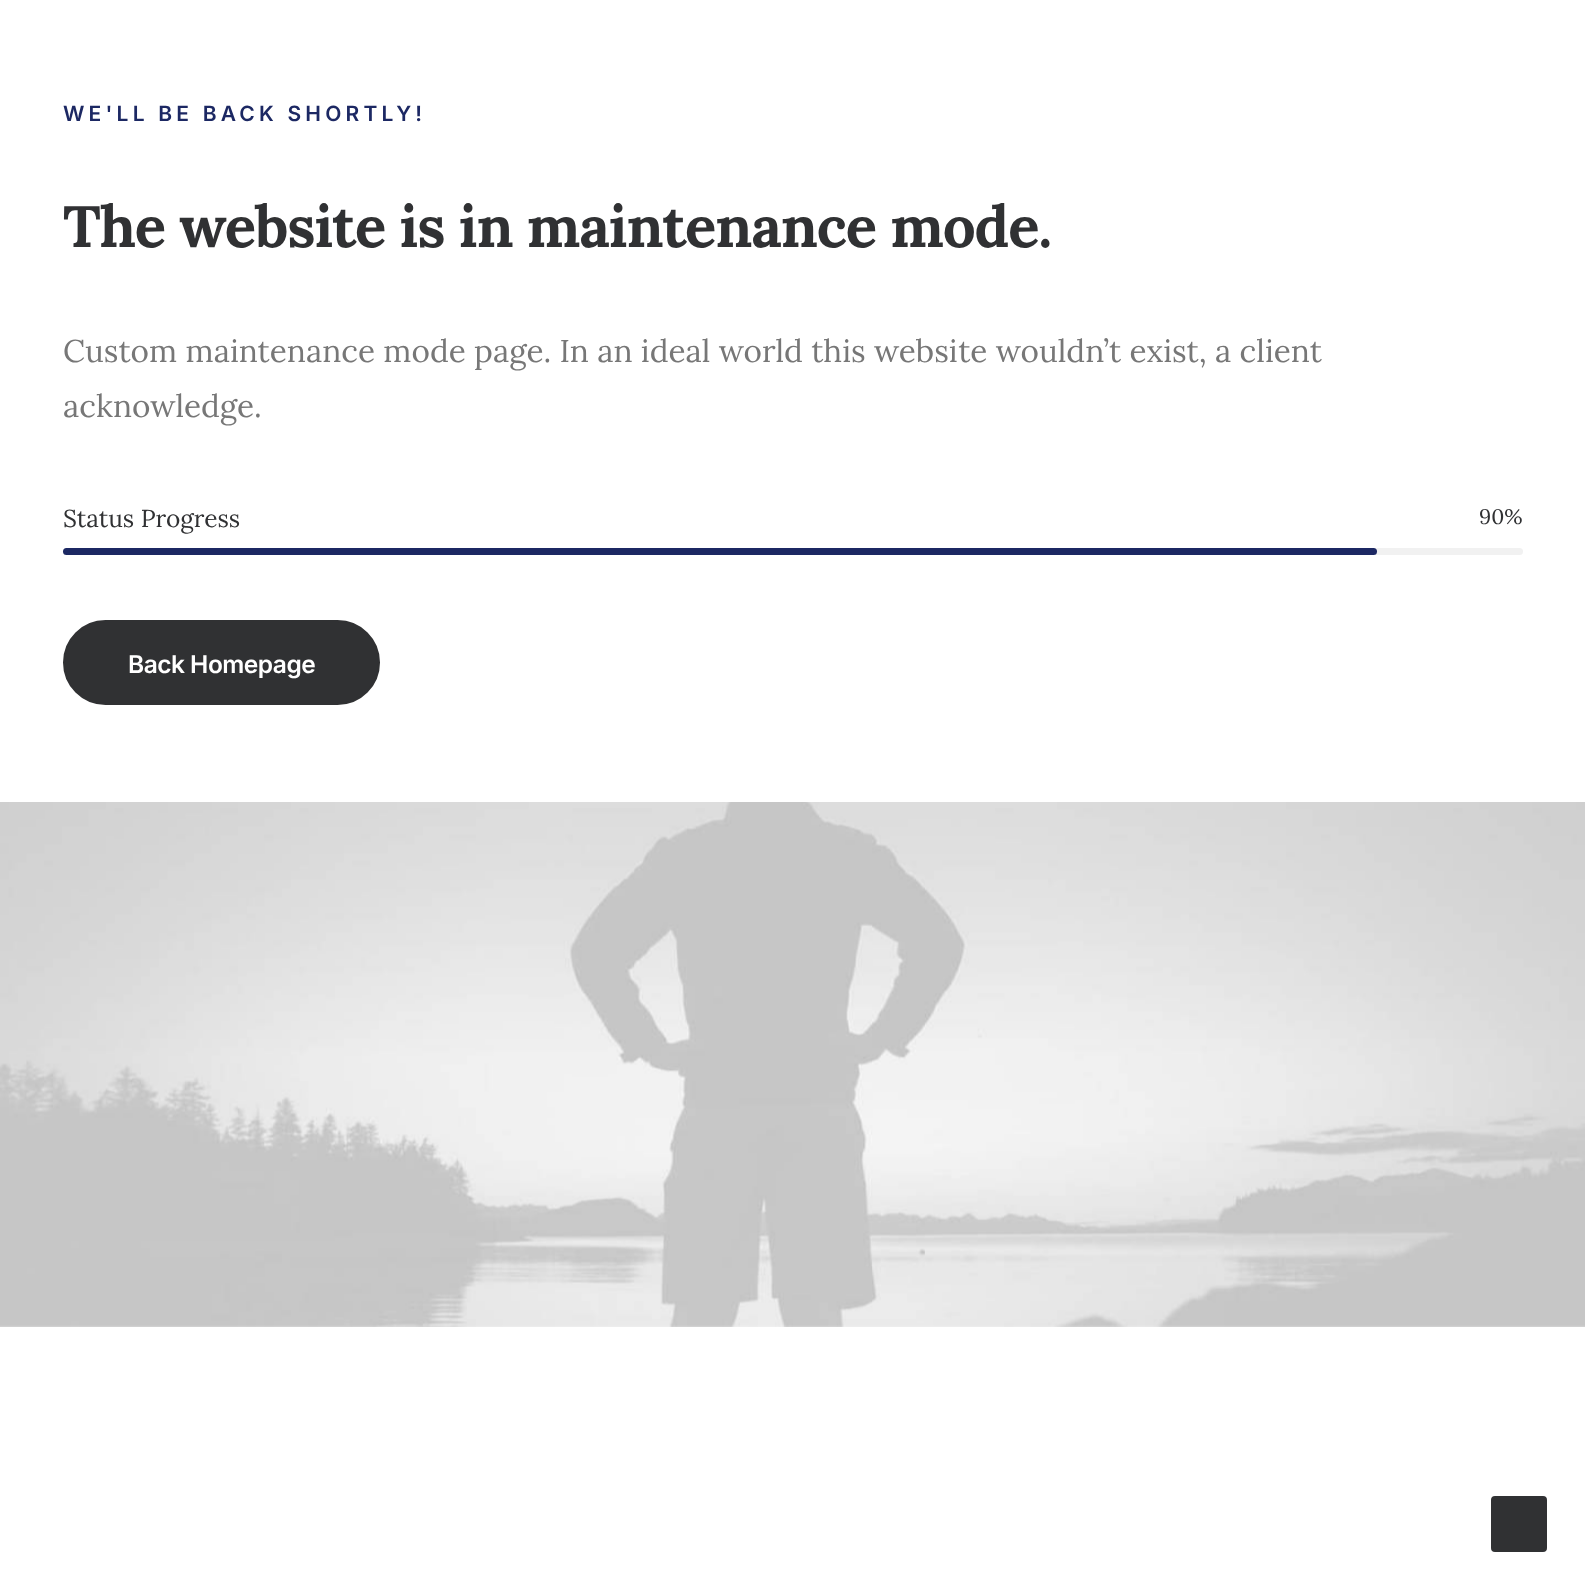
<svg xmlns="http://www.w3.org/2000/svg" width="1585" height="1590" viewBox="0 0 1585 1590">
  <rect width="100%" height="100%" fill="#ffffff"/>
  <text x="63" y="121" font-family="Inter" font-size="21" font-weight="600" letter-spacing="4.2" fill="#1c2863">WE'LL BE BACK SHORTLY!</text>
  <text x="63" y="247" font-family="Lora" font-size="58.3" font-weight="bold" letter-spacing="-1.15" fill="#303133">The website is in maintenance mode.</text>
  <text x="63" y="362" font-family="Lora" font-size="31.5" fill="#777777">Custom maintenance mode page. In an ideal world this website wouldn’t exist, a client</text>
  <text x="63" y="417" font-family="Lora" font-size="31.5" fill="#777777">acknowledge.</text>
  <text x="63" y="527" font-family="Lora" font-size="24.5" fill="#303133">Status Progress</text>
  <text x="1479" y="524" font-family="Lora" font-size="21" fill="#303133">90%</text>
  <rect x="63" y="548" width="1460" height="7" rx="3.5" fill="#f1f1f1"/>
  <rect x="63" y="548" width="1314" height="7" rx="3.5" fill="#1c2863"/>
  <rect x="64" y="621" width="315" height="83" rx="41.5" fill="#303133" stroke="#303133" stroke-width="2"/>
  <text x="128" y="673" font-family="Inter" font-size="24.5" font-weight="600" letter-spacing="-0.5" fill="#ffffff">Back Homepage</text>
  <image x="0" y="802" width="1585" height="525" href="img1.png"/>
  <rect x="1492" y="1497" width="54" height="54" rx="3" fill="#303133" stroke="#303133" stroke-width="2"/>
</svg>
